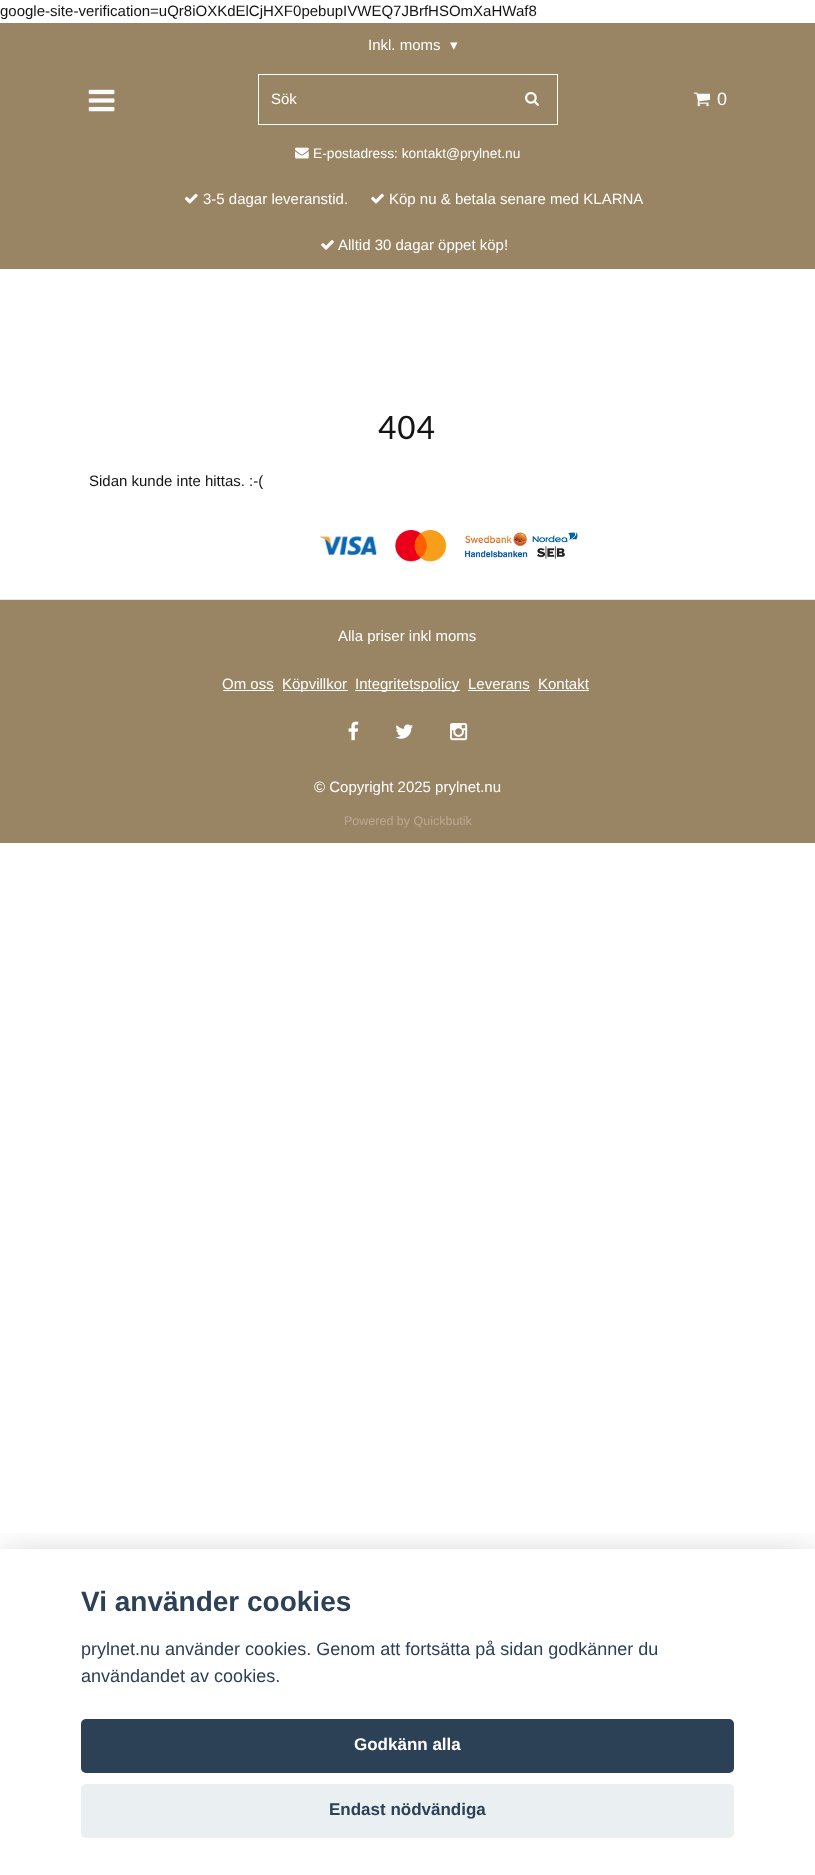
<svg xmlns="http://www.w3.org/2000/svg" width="815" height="1875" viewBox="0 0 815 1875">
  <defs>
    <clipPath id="clip1"><rect x="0" y="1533" width="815" height="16"/></clipPath>
    <filter id="blur1" x="-50%" y="-200%" width="200%" height="500%"><feGaussianBlur stdDeviation="19"/></filter>
  </defs>
  <rect width="100%" height="100%" fill="#ffffff"/>
  <text x="0" y="16" font-family="Liberation Sans" font-size="15" fill="#141414">google-site-verification=uQr8iOXKdElCjHXF0pebupIVWEQ7JBrfHSOmXaHWaf8</text>
  <rect x="0" y="23" width="815" height="246" fill="#998563"/>
  <text x="368" y="50" font-family="Liberation Sans" font-size="15" fill="#ffffff">Inkl. moms</text>
  <text x="450" y="50" font-family="DejaVu Sans" font-size="15" fill="#ffffff">▾</text>
  <image x="88" y="89" width="27" height="23" href="img1.png"/>
  <rect x="258.5" y="74.5" width="299" height="50" fill="none" stroke="#ffffff"/>
  <text x="271" y="104" font-family="Liberation Sans" font-size="15" fill="#ffffff">Sök</text>
  <image x="525" y="92" width="14" height="14" href="img2.png"/>
  <image x="693" y="92" width="17" height="15" href="img3.png"/>
  <text x="717" y="105" font-family="Liberation Sans" font-size="18" fill="#ffffff">0</text>
  <image x="295" y="147" width="14" height="12" href="img4.png"/>
  <text x="313" y="158" font-family="Liberation Sans" font-size="13.75" fill="#ffffff">E-postadress: kontakt@prylnet.nu</text>
  <image x="184" y="193" width="14" height="11" href="img5.png"/>
  <text x="203" y="204" font-family="Liberation Sans" font-size="15" fill="#ffffff">3-5 dagar leveranstid.</text>
  <image x="371" y="193" width="13" height="11" href="img6.png"/>
  <text x="389" y="204" font-family="Liberation Sans" font-size="15" fill="#ffffff">Köp nu &amp; betala senare med KLARNA</text>
  <image x="321" y="240" width="13" height="10" href="img7.png"/>
  <text x="338" y="250" font-family="Liberation Sans" font-size="15" fill="#ffffff">Alltid 30 dagar öppet köp!</text>
  <text x="378" y="439" font-family="Carlito" font-size="36" letter-spacing="1" fill="#141414">404</text>
  <text x="89" y="486" font-family="Liberation Sans" font-size="15" fill="#141414">Sidan kunde inte hittas. :-(</text>
  <image x="320" y="536" width="57" height="19" href="img8.png"/>
  <image x="395" y="530" width="52" height="32" href="img9.png"/>
  <image x="465" y="532" width="113" height="27" href="img10.png"/>
  <rect x="0" y="600" width="815" height="243" fill="#998563"/>
  <rect x="0" y="599" width="815" height="1" fill="#e8e8e8"/>
  <text x="338" y="641" font-family="Liberation Sans" font-size="15" fill="#ffffff">Alla priser inkl moms</text>
  <text x="222" y="689" font-family="Liberation Sans" font-size="15" fill="#ffffff">Om oss</text>
  <rect x="223" y="690" width="51" height="1" fill="#ffffff"/>
  <rect x="283" y="690" width="65" height="1" fill="#ffffff"/>
  <text x="282" y="689" font-family="Liberation Sans" font-size="15" fill="#ffffff">Köpvillkor</text>
  <rect x="355" y="690" width="105" height="1" fill="#ffffff"/>
  <text x="355" y="689" font-family="Liberation Sans" font-size="15" fill="#ffffff">Integritetspolicy</text>
  <text x="468" y="689" font-family="Liberation Sans" font-size="15" fill="#ffffff">Leverans</text>
  <rect x="468" y="690" width="62" height="1" fill="#ffffff"/>
  <text x="538" y="689" font-family="Liberation Sans" font-size="15" fill="#ffffff">Kontakt</text>
  <rect x="538" y="690" width="51" height="1" fill="#ffffff"/>
  <image x="348" y="721" width="11" height="20" href="img11.png"/>
  <image x="395" y="724" width="18" height="15" href="img12.png"/>
  <image x="450" y="723" width="18" height="18" href="img13.png"/>
  <text x="314" y="792" font-family="Liberation Sans" font-size="15" fill="#ffffff">© Copyright 2025 prylnet.nu</text>
  <text x="344" y="825" font-family="Liberation Sans" font-size="12.5" fill="#b8aa92">Powered by Quickbutik</text>
  <g clip-path="url(#clip1)">
    <rect x="0" y="1561" width="815" height="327" fill="#020203" fill-opacity="0.28" filter="url(#blur1)"/>
  </g>
  <text x="81" y="1611" font-family="Liberation Sans" font-size="28" font-weight="bold" fill="#2d4156">Vi använder cookies</text>
  <text x="81" y="1655" font-family="Liberation Sans" font-size="18" fill="#2d4156">prylnet.nu använder cookies. Genom att fortsätta på sidan godkänner du</text>
  <text x="81" y="1682" font-family="Liberation Sans" font-size="18" fill="#2d4156">användandet av cookies.</text>
  <rect x="81" y="1719" width="653" height="54" rx="5" fill="#2d4156"/>
  <text x="354" y="1750" font-family="Liberation Sans" font-size="17" font-weight="bold" fill="#ffffff">Godkänn alla</text>
  <rect x="81" y="1784" width="653" height="54" rx="5" fill="#eaeff2"/>
  <text x="329" y="1815" font-family="Liberation Sans" font-size="17" font-weight="bold" fill="#2d4156">Endast nödvändiga</text>
</svg>
